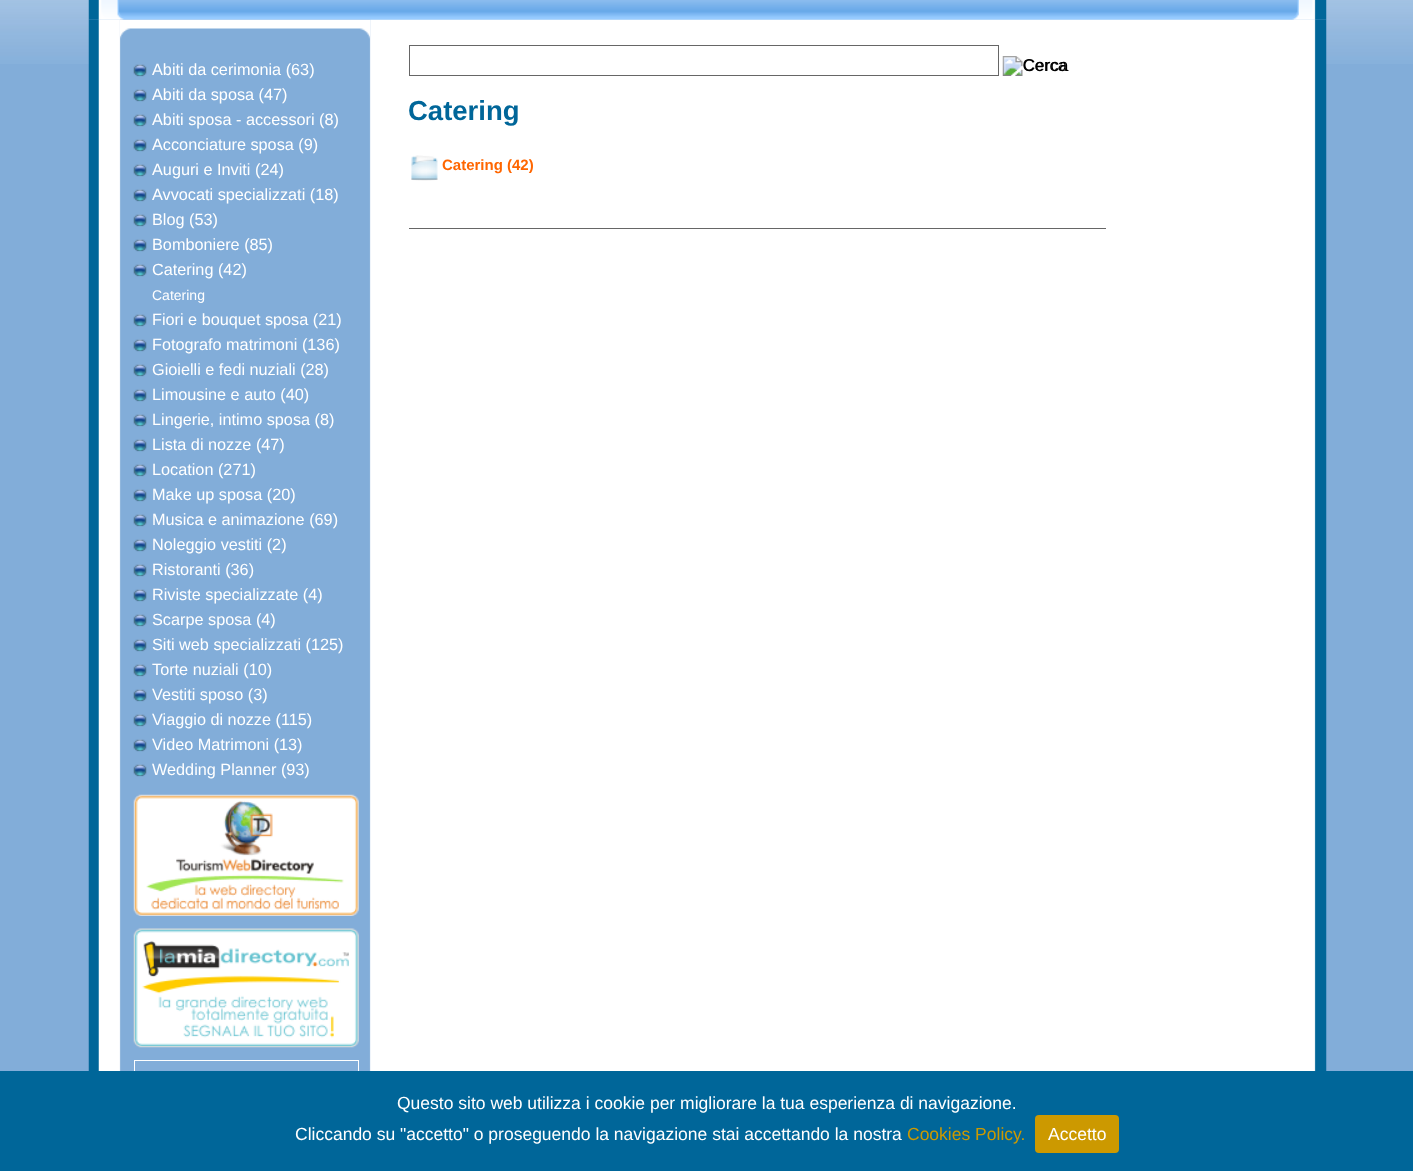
<svg xmlns="http://www.w3.org/2000/svg" width="1413" height="1171" viewBox="0 0 1413 1171">
  <rect width="100%" height="100%" fill="#82add9"/>
  <image x="0" y="0" width="1413" height="64" href="img1.png"/>
  <image x="88" y="0" width="1239" height="20" href="img2.png"/>
  <image x="88" y="19" width="1239" height="1052" href="img3.png"/>
  <image x="120" y="19" width="250" height="20" href="img4.png"/>
  <image x="133" y="64" width="14" height="13" href="img5.png"/>
  <text x="152" y="75" font-family="Liberation Sans" font-size="16.25" fill="#ffffff">Abiti da cerimonia (63)</text>
  <image x="133" y="89" width="14" height="13" href="img5.png"/>
  <text x="152" y="100" font-family="Liberation Sans" font-size="16.25" fill="#ffffff">Abiti da sposa (47)</text>
  <image x="133" y="114" width="14" height="13" href="img5.png"/>
  <text x="152" y="125" font-family="Liberation Sans" font-size="16.25" fill="#ffffff">Abiti sposa - accessori (8)</text>
  <image x="133" y="139" width="14" height="13" href="img5.png"/>
  <text x="152" y="150" font-family="Liberation Sans" font-size="16.25" fill="#ffffff">Acconciature sposa (9)</text>
  <image x="133" y="164" width="14" height="13" href="img5.png"/>
  <text x="152" y="175" font-family="Liberation Sans" font-size="16.25" fill="#ffffff">Auguri e Inviti (24)</text>
  <image x="133" y="189" width="14" height="13" href="img5.png"/>
  <text x="152" y="200" font-family="Liberation Sans" font-size="16.25" fill="#ffffff">Avvocati specializzati (18)</text>
  <image x="133" y="214" width="14" height="13" href="img5.png"/>
  <text x="152" y="225" font-family="Liberation Sans" font-size="16.25" fill="#ffffff">Blog (53)</text>
  <image x="133" y="239" width="14" height="13" href="img5.png"/>
  <text x="152" y="250" font-family="Liberation Sans" font-size="16.25" fill="#ffffff">Bomboniere (85)</text>
  <image x="133" y="264" width="14" height="13" href="img5.png"/>
  <text x="152" y="275" font-family="Liberation Sans" font-size="16.25" fill="#ffffff">Catering (42)</text>
  <text x="152" y="300" font-family="Liberation Sans" font-size="14" fill="#ffffff">Catering</text>
  <image x="133" y="314" width="14" height="13" href="img5.png"/>
  <text x="152" y="325" font-family="Liberation Sans" font-size="16.25" fill="#ffffff">Fiori e bouquet sposa (21)</text>
  <image x="133" y="339" width="14" height="13" href="img5.png"/>
  <text x="152" y="350" font-family="Liberation Sans" font-size="16.25" fill="#ffffff">Fotografo matrimoni (136)</text>
  <image x="133" y="364" width="14" height="13" href="img5.png"/>
  <text x="152" y="375" font-family="Liberation Sans" font-size="16.25" fill="#ffffff">Gioielli e fedi nuziali (28)</text>
  <image x="133" y="389" width="14" height="13" href="img6.png"/>
  <text x="152" y="400" font-family="Liberation Sans" font-size="16.25" fill="#ffffff">Limousine e auto (40)</text>
  <image x="133" y="414" width="14" height="13" href="img5.png"/>
  <text x="152" y="425" font-family="Liberation Sans" font-size="16.25" fill="#ffffff">Lingerie, intimo sposa (8)</text>
  <image x="133" y="439" width="14" height="13" href="img5.png"/>
  <text x="152" y="450" font-family="Liberation Sans" font-size="16.25" fill="#ffffff">Lista di nozze (47)</text>
  <image x="133" y="464" width="14" height="13" href="img5.png"/>
  <text x="152" y="475" font-family="Liberation Sans" font-size="16.25" fill="#ffffff">Location (271)</text>
  <image x="133" y="489" width="14" height="13" href="img5.png"/>
  <text x="152" y="500" font-family="Liberation Sans" font-size="16.25" fill="#ffffff">Make up sposa (20)</text>
  <image x="133" y="514" width="14" height="13" href="img5.png"/>
  <text x="152" y="525" font-family="Liberation Sans" font-size="16.25" fill="#ffffff">Musica e animazione (69)</text>
  <image x="133" y="539" width="14" height="13" href="img5.png"/>
  <text x="152" y="550" font-family="Liberation Sans" font-size="16.25" fill="#ffffff">Noleggio vestiti (2)</text>
  <image x="133" y="564" width="14" height="13" href="img5.png"/>
  <text x="152" y="575" font-family="Liberation Sans" font-size="16.25" fill="#ffffff">Ristoranti (36)</text>
  <image x="133" y="589" width="14" height="13" href="img7.png"/>
  <text x="152" y="600" font-family="Liberation Sans" font-size="16.25" fill="#ffffff">Riviste specializzate (4)</text>
  <image x="133" y="614" width="14" height="13" href="img5.png"/>
  <text x="152" y="625" font-family="Liberation Sans" font-size="16.25" fill="#ffffff">Scarpe sposa (4)</text>
  <image x="133" y="639" width="14" height="13" href="img5.png"/>
  <text x="152" y="650" font-family="Liberation Sans" font-size="16.25" fill="#ffffff">Siti web specializzati (125)</text>
  <image x="133" y="664" width="14" height="13" href="img5.png"/>
  <text x="152" y="675" font-family="Liberation Sans" font-size="16.25" fill="#ffffff">Torte nuziali (10)</text>
  <image x="133" y="689" width="14" height="13" href="img5.png"/>
  <text x="152" y="700" font-family="Liberation Sans" font-size="16.25" fill="#ffffff">Vestiti sposo (3)</text>
  <image x="133" y="714" width="14" height="13" href="img5.png"/>
  <text x="152" y="725" font-family="Liberation Sans" font-size="16.25" fill="#ffffff">Viaggio di nozze (115)</text>
  <image x="133" y="739" width="14" height="13" href="img5.png"/>
  <text x="152" y="750" font-family="Liberation Sans" font-size="16.25" fill="#ffffff">Video Matrimoni (13)</text>
  <image x="133" y="764" width="14" height="13" href="img5.png"/>
  <text x="152" y="775" font-family="Liberation Sans" font-size="16.25" fill="#ffffff">Wedding Planner (93)</text>
  <image x="133" y="794" width="226" height="122" href="img8.png"/>
  <image x="133" y="928" width="226" height="120" href="img9.png"/>
  <rect x="134.5" y="1060.5" width="224" height="95" fill="none" stroke="#ffffff"/>
  <rect x="409.5" y="45.5" width="589" height="30" fill="none" stroke="#666666"/>
  <image x="1002" y="56" width="65" height="20" href="img10.png"/>
  <text x="1023" y="71" font-family="Liberation Sans" font-size="17" fill="#000000">Cerca</text>
  <text x="408" y="120" font-family="Liberation Sans" font-size="27.5" font-weight="bold" fill="#006699">Catering</text>
  <image x="411" y="155" width="27" height="26" href="img11.png"/>
  <text x="442" y="170" font-family="Liberation Sans" font-size="15" font-weight="bold" fill="#ff6600">Catering (42)</text>
  <rect x="409" y="228" width="697" height="1" fill="#666666"/>
  <rect x="0" y="1071" width="1413" height="100" fill="#006699"/>
  <text x="397" y="1109" font-family="Liberation Sans" font-size="17.5" fill="#ffffff">Questo sito web utilizza i cookie per migliorare la tua esperienza di navigazione.</text>
  <text x="295" y="1140" font-family="Liberation Sans" font-size="17.5" fill="#ffffff">Cliccando su "accetto" o proseguendo la navigazione stai accettando la nostra</text>
  <text x="907" y="1140" font-family="Liberation Sans" font-size="17.5" fill="#cc9900">Cookies Policy.</text>
  <rect x="1035" y="1115" width="84" height="38" rx="4" fill="#cc9900"/>
  <text x="1048" y="1140" font-family="Liberation Sans" font-size="17.5" fill="#ffffff">Accetto</text>
</svg>
